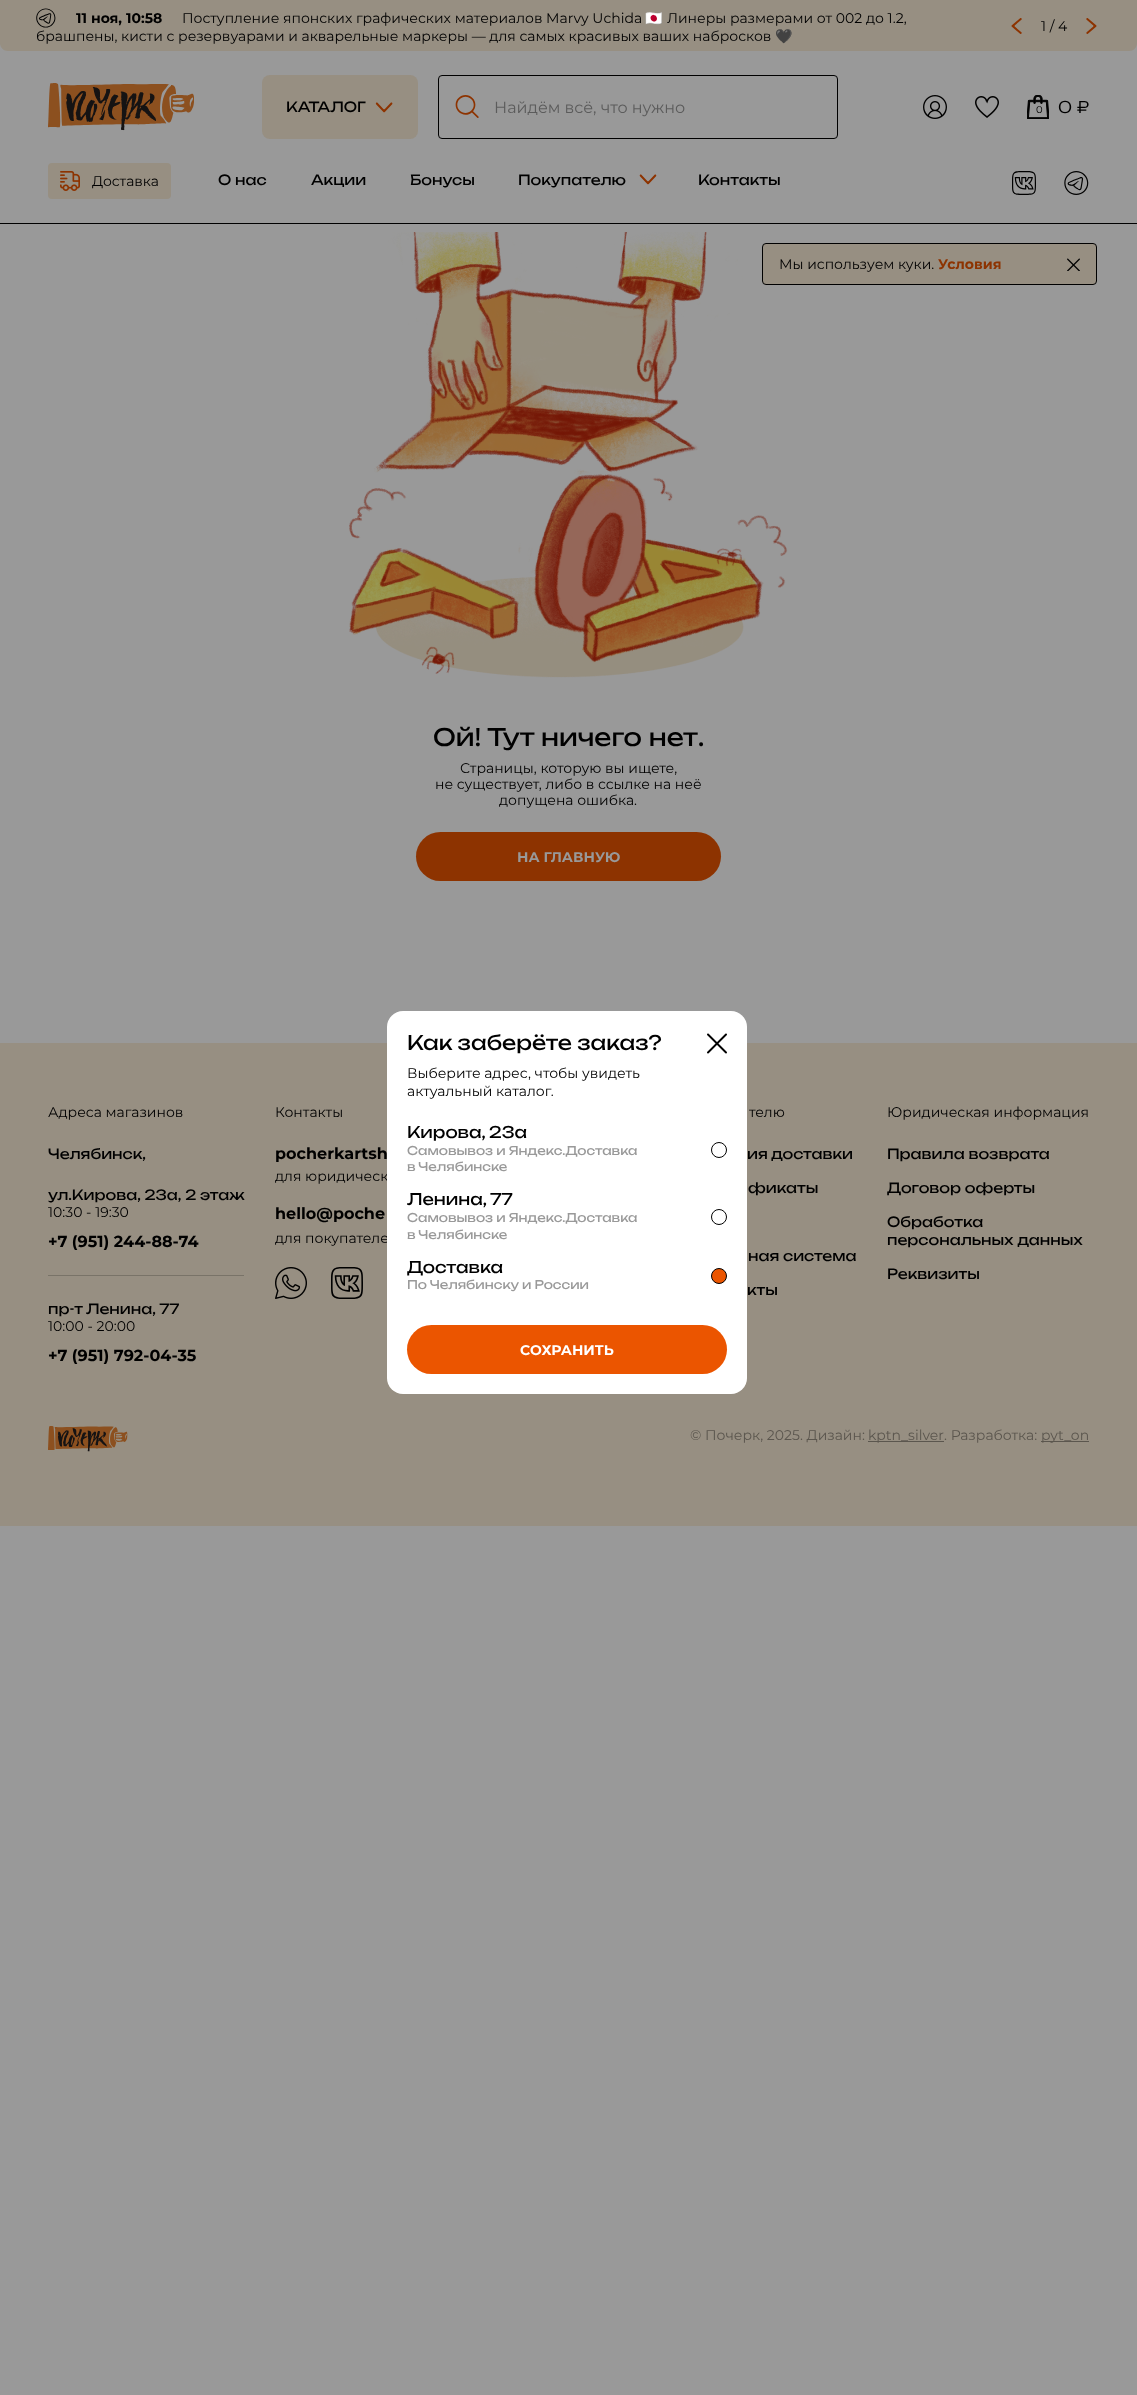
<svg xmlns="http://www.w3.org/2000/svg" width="1137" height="2395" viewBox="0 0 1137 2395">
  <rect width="100%" height="100%" fill="#999999"/>
  <path d="M0 0H1137V43C1137 47.5 1133.5 51 1129 51H8C3.5 51 0 47.5 0 43Z" fill="#978f82"/>
  <image x="36" y="8" width="20" height="20" href="img1.png"/>
  <text x="76" y="23" font-family="Montserrat" font-size="14" font-weight="bold" fill="#000000">11 ноя, 10:58</text>
  <text x="182" y="23" font-family="Montserrat" font-size="14" fill="#000000">Поступление японских графических материалов Marvy Uchida</text>
  <text x="645" y="23" font-family="Noto Color Emoji" font-size="14" fill="#000000">🇯🇵</text>
  <text x="667" y="23" font-family="Montserrat" font-size="14" fill="#000000">Линеры размерами от 002 до 1.2,</text>
  <text x="36" y="41" font-family="Montserrat" font-size="14" fill="#000000">брашпены, кисти с резервуарами и акварельные маркеры — для самых красивых ваших набросков</text>
  <text x="775" y="41" font-family="Noto Color Emoji" font-size="14" fill="#000000">🖤</text>
  <image x="1011" y="18" width="11" height="16" href="img2.png"/>
  <text x="1041" y="31" font-family="Montserrat" font-size="14" fill="#000000">1 / 4</text>
  <image x="1086" y="18" width="11" height="16" href="img3.png"/>
  <rect x="0" y="223" width="1137" height="1" fill="#000000"/>
  <image x="48" y="83" width="146" height="48" href="img4.png"/>
  <rect x="262" y="75" width="156" height="64" rx="8" fill="#978f82"/>
  <text x="286" y="112" font-family="Unbounded" font-size="14" fill="#000000">КАТАЛОГ</text>
  <image x="375" y="102" width="18" height="11" href="img5.png"/>
  <rect x="438.5" y="75.5" width="399" height="63" rx="3.5" fill="none" stroke="#000000"/>
  <image x="455" y="95" width="24" height="23" href="img6.png"/>
  <text x="494" y="113" font-family="Montserrat" font-size="16" fill="#5c5c5c">Найдём всё, что нужно</text>
  <image x="923" y="95" width="24" height="24" href="img7.png"/>
  <image x="975" y="96" width="24" height="22" href="img8.png"/>
  <image x="1027" y="95" width="22" height="24" href="img9.png"/>
  <text x="1036" y="113" font-family="Montserrat" font-size="10" fill="#000000">0</text>
  <text x="1058" y="113" font-family="Unbounded" font-size="16" font-weight="300" fill="#000000">0 ₽</text>
  <rect x="48" y="163" width="123" height="36" rx="4" fill="#978f82"/>
  <image x="60" y="171" width="20" height="20" href="img10.png"/>
  <text x="92" y="186" font-family="Montserrat" font-size="14" fill="#000000">Доставка</text>
  <text x="218" y="185" font-family="Unbounded" font-size="14" fill="#000000">О нас</text>
  <text x="311" y="185" font-family="Unbounded" font-size="14" fill="#000000">Акции</text>
  <text x="410" y="185" font-family="Unbounded" font-size="14" fill="#000000">Бонусы</text>
  <text x="518" y="185" font-family="Unbounded" font-size="14" fill="#000000">Покупателю</text>
  <image x="639" y="174" width="18" height="11" href="img11.png"/>
  <text x="698" y="185" font-family="Unbounded" font-size="14" fill="#000000">Контакты</text>
  <image x="1012" y="171" width="24" height="24" href="img12.png"/>
  <image x="1064" y="171" width="25" height="24" href="img13.png"/>
  <image x="349" y="232" width="439" height="446" href="img14.png"/>
  <text x="433" y="746" word-spacing="0.5" font-family="Unbounded" font-size="24" fill="#000000">Ой! Тут ничего нет.</text>
  <text x="460" y="773" font-family="Montserrat" font-size="14" fill="#000000">Страницы, которую вы ищете,</text>
  <text x="435" y="789" font-family="Montserrat" font-size="14" fill="#000000">не существует, либо в ссылке на неё</text>
  <text x="499" y="805" font-family="Montserrat" font-size="14" fill="#000000">допущена ошибка.</text>
  <rect x="416" y="832" width="305" height="49" rx="24.5" fill="#8d3300"/>
  <text x="517" y="862" font-family="Montserrat" font-size="14" font-weight="bold" fill="#999999">НА ГЛАВНУЮ</text>
  <rect x="0" y="1043" width="1137" height="483" fill="#978f82"/>
  <text x="48" y="1117" font-family="Montserrat" font-size="14" fill="#000000">Адреса магазинов</text>
  <rect x="48" y="1275" width="196" height="1" fill="#797368"/>
  <text x="48" y="1159" font-family="Unbounded" font-size="14" fill="#000000">Челябинск,</text>
  <text x="48" y="1200" font-family="Unbounded" font-size="14" fill="#000000">ул.Кирова, 23а, 2 этаж</text>
  <text x="48" y="1217" font-family="Montserrat" font-size="14" fill="#000000">10:30 - 19:30</text>
  <text x="48" y="1247" font-family="Montserrat" font-size="16" font-weight="bold" fill="#000000">+7 (951) 244-88-74</text>
  <text x="48" y="1314" font-family="Unbounded" font-size="14" fill="#000000">пр-т Ленина, 77</text>
  <text x="48" y="1331" font-family="Montserrat" font-size="14" fill="#000000">10:00 - 20:00</text>
  <text x="48" y="1361" font-family="Montserrat" font-size="16" font-weight="bold" fill="#000000">+7 (951) 792-04-35</text>
  <text x="275" y="1117" font-family="Montserrat" font-size="14" fill="#000000">Контакты</text>
  <text x="275" y="1159" font-family="Montserrat" font-size="16" font-weight="bold" fill="#000000">pocherkartsh</text>
  <text x="275" y="1181" font-family="Montserrat" font-size="14" fill="#000000">для юридическ</text>
  <text x="275" y="1219" font-family="Montserrat" font-size="16" font-weight="bold" fill="#000000">hello@poche</text>
  <text x="275" y="1243" font-family="Montserrat" font-size="14" fill="#000000">для покупателе</text>
  <image x="275" y="1267" width="32" height="32" href="img15.png"/>
  <image x="331" y="1267" width="32" height="32" href="img16.png"/>
  <text x="749" y="1117" font-family="Montserrat" font-size="14" fill="#000000">телю</text>
  <text x="747" y="1159" font-family="Unbounded" font-size="14" fill="#000000">ия доставки</text>
  <text x="748" y="1193" font-family="Unbounded" font-size="14" fill="#000000">фикаты</text>
  <text x="748" y="1261" font-family="Unbounded" font-size="14" fill="#000000">ная система</text>
  <text x="747" y="1295" font-family="Unbounded" font-size="14" fill="#000000">кты</text>
  <text x="887" y="1117" font-family="Montserrat" font-size="14" fill="#000000">Юридическая информация</text>
  <text x="887" y="1159" font-family="Unbounded" font-size="14" fill="#000000">Правила возврата</text>
  <text x="887" y="1193" font-family="Unbounded" font-size="14" fill="#000000">Договор оферты</text>
  <text x="887" y="1227" font-family="Unbounded" font-size="14" fill="#000000">Обработка</text>
  <text x="887" y="1245" word-spacing="1" font-family="Unbounded" font-size="14" fill="#000000">персональных данных</text>
  <text x="887" y="1279" font-family="Unbounded" font-size="14" fill="#000000">Реквизиты</text>
  <image x="48" y="1426" width="80" height="26" href="img17.png"/>
  <text x="690" y="1440" font-family="Montserrat" font-size="14" fill="#5b564e">© Почерк, 2025. Дизайн:</text>
  <rect x="868" y="1441" width="76" height="1" fill="#5b564e"/>
  <text x="868" y="1440" font-family="Montserrat" font-size="14" fill="#5b564e">kptn_silver</text>
  <text x="944" y="1440" font-family="Montserrat" font-size="14" fill="#5b564e">. Разработка:</text>
  <rect x="1041" y="1441" width="48" height="1" fill="#5b564e"/>
  <text x="1041" y="1440" font-family="Montserrat" font-size="14" fill="#5b564e">pyt_on</text>
  <rect x="762.5" y="243.5" width="334" height="41" rx="3.5" fill="#978f82" stroke="#000000"/>
  <text x="779" y="269" font-family="Montserrat" font-size="14" fill="#000000">Мы используем куки.</text>
  <text x="938" y="269" font-family="Montserrat" font-size="14" font-weight="bold" fill="#8d3300">Условия</text>
  <image x="1067" y="258" width="13" height="13" href="img18.png"/>
  <rect x="387" y="1011" width="360" height="383" rx="16" fill="#ffffff"/>
  <text x="407" y="1050" font-family="Unbounded" font-size="20" fill="#000000">Как заберёте заказ?</text>
  <image x="707" y="1033" width="20" height="21" href="img19.png"/>
  <text x="407" y="1078" font-family="Montserrat" font-size="14" fill="#000000">Выберите адрес, чтобы увидеть</text>
  <text x="407" y="1096" font-family="Montserrat" font-size="14" fill="#000000">актуальный каталог.</text>
  <text x="407" y="1138" word-spacing="-1" font-family="Unbounded" font-size="16" fill="#000000">Кирова, 23а</text>
  <text x="407" y="1155" font-family="Unbounded" font-size="12" fill="#999999">Самовывоз и Яндекс.Доставка</text>
  <text x="407" y="1171" font-family="Unbounded" font-size="12" fill="#999999">в Челябинске</text>
  <circle cx="719" cy="1150" r="7.5" fill="none" stroke="#000000"/>
  <text x="407" y="1205" word-spacing="-1" font-family="Unbounded" font-size="16" fill="#000000">Ленина, 77</text>
  <text x="407" y="1222" font-family="Unbounded" font-size="12" fill="#999999">Самовывоз и Яндекс.Доставка</text>
  <text x="407" y="1239" font-family="Unbounded" font-size="12" fill="#999999">в Челябинске</text>
  <circle cx="719" cy="1217" r="7.5" fill="none" stroke="#000000"/>
  <text x="407" y="1273" font-family="Unbounded" font-size="16" fill="#000000">Доставка</text>
  <text x="407" y="1289" font-family="Unbounded" font-size="12" fill="#999999">По Челябинску и России</text>
  <circle cx="719" cy="1276" r="7.5" fill="#eb5500" stroke="#000000"/>
  <rect x="407" y="1325" width="320" height="49" rx="24.5" fill="#eb5500"/>
  <text x="520" y="1355" font-family="Montserrat" font-size="14" font-weight="bold" fill="#ffffff">СОХРАНИТЬ</text>
</svg>
